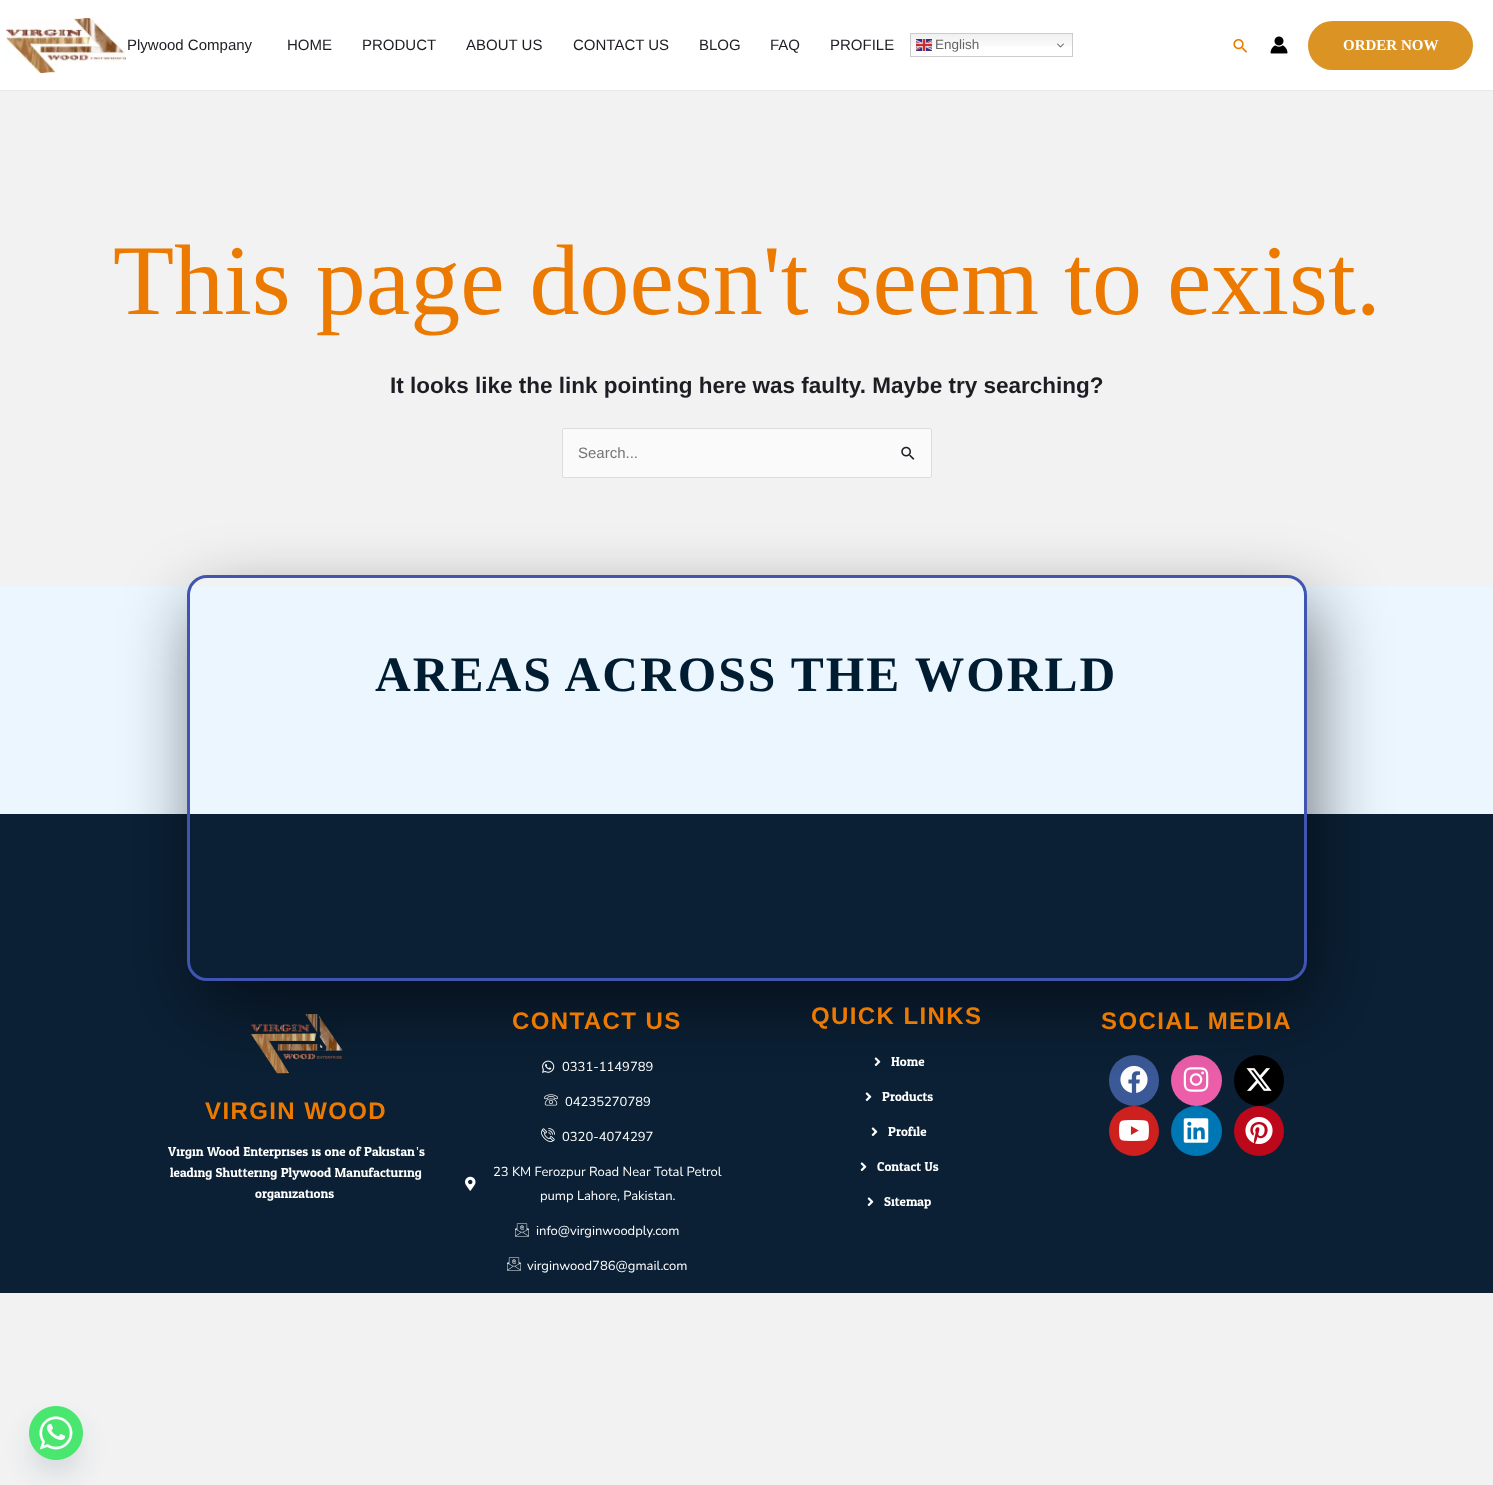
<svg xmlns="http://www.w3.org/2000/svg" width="1493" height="1485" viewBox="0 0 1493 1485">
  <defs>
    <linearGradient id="g1" gradientUnits="userSpaceOnUse" x1="992" y1="33" x2="992" y2="57"><stop offset="0" stop-color="#efefef"/><stop offset="0.7" stop-color="#ffffff"/></linearGradient>
    <clipPath id="clip1"><path d="M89 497H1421V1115H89ZM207 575H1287C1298 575 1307 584 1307 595V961C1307 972 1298 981 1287 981H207C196 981 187 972 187 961V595C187 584 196 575 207 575Z" clip-rule="evenodd"/></clipPath>
    <filter id="blur1" x="-50%" y="-200%" width="200%" height="500%"><feGaussianBlur stdDeviation="35"/></filter>
    <filter id="blur2" x="-50%" y="-200%" width="200%" height="500%"><feGaussianBlur stdDeviation="12"/></filter>
  </defs>
  <rect width="100%" height="100%" fill="#f2f2f2"/>
  <rect x="0" y="0" width="1493" height="90" fill="#ffffff"/>
  <rect x="0" y="90" width="1493" height="1" fill="#eaeaea"/>
  <image x="6" y="18" width="120" height="55" href="img1.png"/>
  <text x="127" y="50" font-family="Liberation Sans" font-size="15" fill="#1d1d23">Plywood Company</text>
  <text x="287" y="50" font-family="Liberation Sans" font-size="15" fill="#1d1d23">HOME</text>
  <text x="362" y="50" font-family="Liberation Sans" font-size="15" fill="#1d1d23">PRODUCT</text>
  <text x="466" y="50" font-family="Liberation Sans" font-size="15" fill="#1d1d23">ABOUT US</text>
  <text x="573" y="50" font-family="Liberation Sans" font-size="15" fill="#1d1d23">CONTACT US</text>
  <text x="699" y="50" font-family="Liberation Sans" font-size="15" fill="#1d1d23">BLOG</text>
  <text x="770" y="50" font-family="Liberation Sans" font-size="15" fill="#1d1d23">FAQ</text>
  <text x="830" y="50" font-family="Liberation Sans" font-size="15" fill="#1d1d23">PROFILE</text>
  <rect x="911" y="34" width="161" height="13" fill="url(#g1)"/>
  <rect x="910.5" y="33.5" width="162" height="23" fill="none" stroke="#cccccc"/>
  <image x="916" y="39" width="16" height="12" href="img2.png"/>
  <text x="935" y="49" font-family="Liberation Sans" font-size="13.5" fill="#666666">English</text>
  <image x="1057" y="43" width="7" height="5" href="img3.png"/>
  <image x="1233" y="39" width="15" height="14" href="img4.png"/>
  <image x="1270" y="36" width="18" height="18" href="img5.png"/>
  <rect x="1308" y="21" width="165" height="49" rx="24.5" fill="#db9423"/>
  <text x="1343" y="50" font-family="Liberation Serif" font-size="15" font-weight="bold" fill="#ffffff">ORDER NOW</text>
  <text x="113" y="314" font-family="Liberation Serif" font-size="100" fill="#ed7a00">This page doesn't seem to exist.</text>
  <text x="390" y="393" font-family="Liberation Sans" font-size="22.5" font-weight="bold" fill="#1d1d23">It looks like the link pointing here was faulty. Maybe try searching?</text>
  <rect x="562.5" y="428.5" width="369" height="49" rx="1.5" fill="#fafafa" stroke="#dddddd"/>
  <text x="578" y="458" font-family="Liberation Sans" font-size="15" fill="#757575">Search...</text>
  <image x="901" y="446" width="14" height="14" href="img6.png"/>
  <rect x="0" y="586" width="1493" height="228" fill="#ebf6ff"/>
  <rect x="0" y="814" width="1493" height="479" fill="#0b2035"/>
  <image x="542" y="1060" width="13" height="13" href="img7.png"/>
  <image x="544" y="1094" width="14" height="12" href="img8.png"/>
  <image x="874" y="1057" width="7" height="10" href="img12.png"/>
  <image x="865" y="1092" width="7" height="10" href="img12.png"/>
  <rect x="1109" y="1055" width="50" height="51" rx="25" fill="#3b5998"/>
  <image x="1120" y="1065" width="28" height="28" href="img13.png"/>
  <circle cx="1196.5" cy="1080.5" r="25.5" fill="#ed5eaa"/>
  <image x="1183" y="1067" width="26" height="25" href="img14.png"/>
  <rect x="1234" y="1055" width="50" height="51" rx="25" fill="#000000"/>
  <image x="1246" y="1068" width="26" height="23" href="img15.png"/>
  <circle cx="1134" cy="1131" r="25" fill="#cd201f"/>
  <rect x="1171" y="1106" width="51" height="50" rx="25" fill="#0077b5"/>
  <circle cx="1259" cy="1131" r="25" fill="#bd081c"/>
  <image x="250" y="1014" width="93" height="60" href="img19.png"/>
  <g clip-path="url(#clip1)">
    <rect x="195" y="603" width="1120" height="406" rx="20" fill="#000000" fill-opacity="0.5" filter="url(#blur1)"/>
  </g>
  <rect x="188.5" y="576.5" width="1117" height="403" rx="18.5" fill="none" stroke="#4054b2" stroke-width="3"/>
  <text x="375" y="691" font-family="Liberation Serif" font-size="49.5" font-weight="bold" letter-spacing="2" fill="#001c31">AREAS ACROSS THE WORLD</text>
  <text x="512" y="1029" font-family="Liberation Sans" font-size="24" font-weight="bold" letter-spacing="1.4" fill="#ed7a00">CONTACT US</text>
  <text x="562" y="1071" font-family="Nunito Sans" font-size="13" fill="#ffffff">0331-1149789</text>
  <text x="565" y="1106" font-family="Nunito Sans" font-size="13" fill="#ffffff">04235270789</text>
  <image x="541" y="1128" width="14" height="15" href="img9.png"/>
  <text x="562" y="1141" font-family="Nunito Sans" font-size="13" fill="#ffffff">0320-4074297</text>
  <image x="465" y="1176" width="11" height="15" href="img10.png"/>
  <text x="493" y="1176" font-family="Nunito Sans" font-size="13" fill="#ffffff">23 KM Ferozpur Road Near Total Petrol</text>
  <text x="540" y="1200" font-family="Nunito Sans" font-size="13" fill="#ffffff">pump Lahore, Pakistan.</text>
  <image x="515" y="1223" width="14" height="14" href="img11.png"/>
  <text x="536" y="1235" font-family="Nunito Sans" font-size="13" fill="#ffffff">info@virginwoodply.com</text>
  <image x="507" y="1257" width="14" height="14" href="img11.png"/>
  <text x="527" y="1270" font-family="Nunito Sans" font-size="13" fill="#ffffff">virginwood786@gmail.com</text>
  <text x="811" y="1024" font-family="Liberation Sans" font-size="24" font-weight="bold" letter-spacing="1.4" fill="#ed7a00">QUICK LINKS</text>
  <text x="891" y="1066" font-family="Odor Mean Chey" font-size="13" fill="#ffffff">Home</text>
  <text x="882" y="1101" font-family="Odor Mean Chey" font-size="13" fill="#ffffff">Products</text>
  <image x="871" y="1127" width="7" height="10" href="img12.png"/>
  <text x="888" y="1136" font-family="Odor Mean Chey" font-size="13" fill="#ffffff">Profile</text>
  <image x="860" y="1162" width="7" height="10" href="img12.png"/>
  <text x="877" y="1171" font-family="Odor Mean Chey" font-size="13" fill="#ffffff">Contact Us</text>
  <image x="867" y="1197" width="7" height="10" href="img12.png"/>
  <text x="884" y="1206" font-family="Odor Mean Chey" font-size="13" fill="#ffffff">Sitemap</text>
  <text x="1101" y="1029" font-family="Liberation Sans" font-size="24" font-weight="bold" letter-spacing="1.4" fill="#ed7a00">SOCIAL MEDIA</text>
  <image x="1119" y="1120" width="30" height="21" href="img16.png"/>
  <image x="1183" y="1118" width="26" height="25" href="img17.png"/>
  <image x="1245" y="1116" width="28" height="29" href="img18.png"/>
  <text x="205" y="1119" font-family="Liberation Sans" font-size="24" font-weight="bold" letter-spacing="1.4" fill="#ed7a00">VIRGIN WOOD</text>
  <text x="168" y="1156" font-family="Odor Mean Chey" font-size="13" fill="#ffffff">Virgin Wood Enterprises is one of Pakistan</text>
  <text x="416" y="1156" font-family="Liberation Sans" font-size="13" fill="#ffffff">’</text>
  <text x="419" y="1156" font-family="Odor Mean Chey" font-size="13" fill="#ffffff">s</text>
  <text x="170" y="1177" font-family="Odor Mean Chey" font-size="13" fill="#ffffff">leading Shuttering Plywood Manufacturing</text>
  <text x="255" y="1198" font-family="Odor Mean Chey" font-size="13" fill="#ffffff">organizations.</text>
  <rect x="29" y="1422" width="54" height="54" rx="27" fill="#49687e" fill-opacity="0.16" filter="url(#blur2)"/>
  <image x="29" y="1406" width="54" height="54" href="img20.png"/>
</svg>
